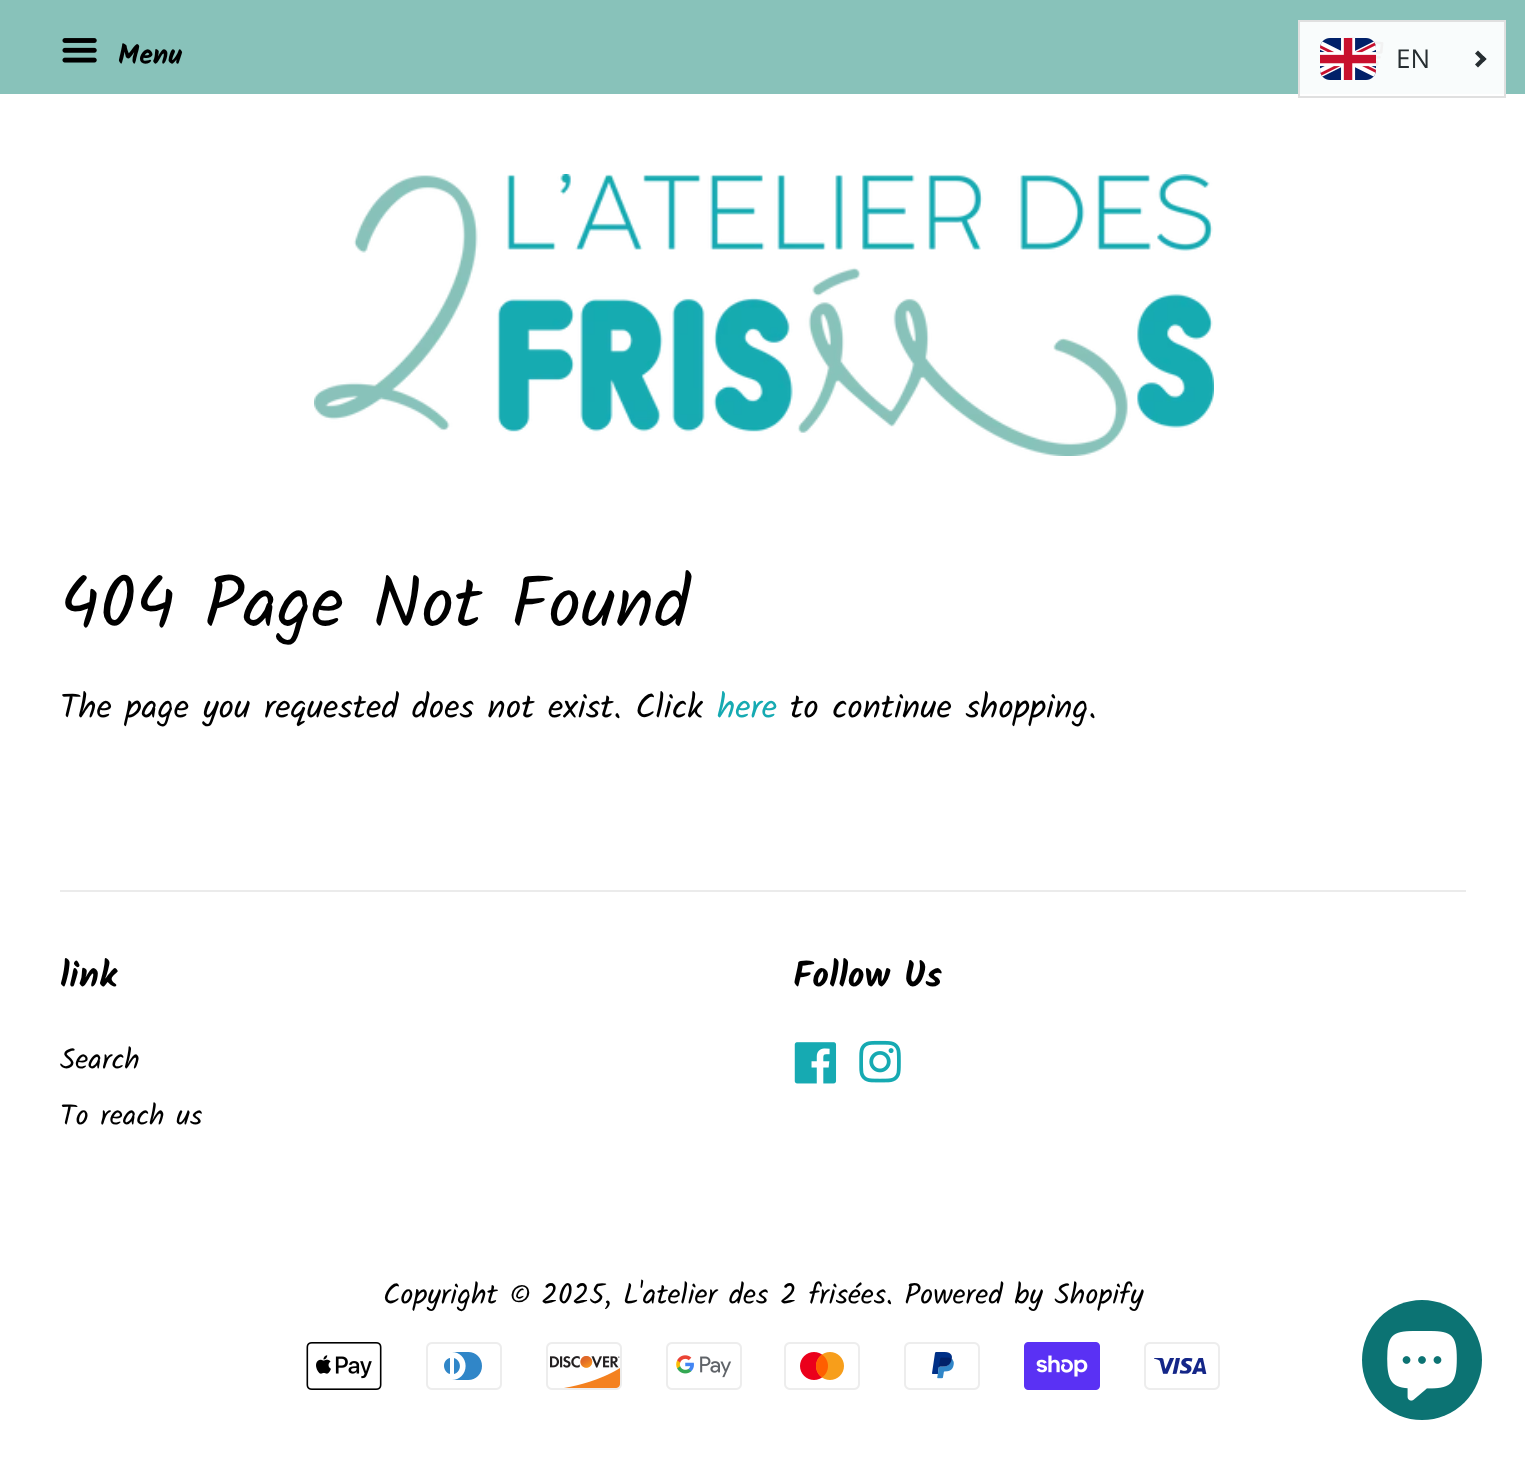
<svg xmlns="http://www.w3.org/2000/svg" width="1525" height="1462" viewBox="0 0 1525 1462">
  <rect width="100%" height="100%" fill="#ffffff"/>
  <rect x="0" y="0" width="1525" height="94" fill="#88c2ba"/>
  <rect x="1300" y="22" width="204" height="72" fill="#f9fcfc"/>
  <image x="62" y="38" width="35" height="25" href="img1.png"/>
  <text x="118" y="64" font-family="Kalam" font-size="28" font-weight="bold" fill="#000000">Menu</text>
  <image x="1347" y="37" width="37" height="29" href="img2.png"/>
  <image x="314" y="174" width="900" height="282" href="img3.png"/>
  <rect x="1299" y="21" width="206" height="76" fill="none" stroke="#e0e0e0" stroke-width="2"/>
  <image x="1320" y="38" width="56" height="42" href="img4.png"/>
  <text x="1396" y="68" font-family="Open Sans" font-size="26" fill="#272e31">EN</text>
  <path d="M1478 50.5L1486.5 59L1483.5 62L1475 53.5Z" fill="#272e31"/>
  <path d="M1483.5 56L1486.5 59L1478 67.5L1475 64.5Z" fill="#272e31"/>
  <text x="60" y="627" font-family="Kalam" font-size="72" fill="#000000">404 Page Not Found</text>
  <text x="60" y="718" font-family="Kalam" font-size="34" fill="#000000">The page you requested does not exist. Click</text>
  <text x="717" y="718" font-family="Kalam" font-size="34" fill="#16aab2">here</text>
  <text x="790" y="718" font-family="Kalam" font-size="34" fill="#000000">to continue shopping.</text>
  <rect x="60" y="890" width="1406" height="2" fill="#ebebeb"/>
  <text x="60" y="987" font-family="Kalam" font-size="36" font-weight="bold" fill="#000000">link</text>
  <text x="60" y="1069" font-family="Kalam" font-size="28.9" fill="#000000">Search</text>
  <text x="60" y="1125" font-family="Kalam" font-size="28.9" fill="#000000">To reach us</text>
  <text x="793" y="987" font-family="Kalam" font-size="36" font-weight="bold" fill="#000000">Follow Us</text>
  <image x="794" y="1042" width="43" height="42" href="img5.png"/>
  <image x="859" y="1040" width="42" height="43" href="img6.png"/>
  <text x="383" y="1304" font-family="Kalam" font-size="28.9" fill="#000000">Copyright © 2025, L'atelier des 2 frisées. Powered by Shopify</text>
  <image x="306" y="1342" width="76" height="48" href="img7.png"/>
  <image x="426" y="1342" width="76" height="48" href="img8.png"/>
  <image x="546" y="1342" width="76" height="48" href="img9.png"/>
  <image x="666" y="1342" width="76" height="48" href="img10.png"/>
  <image x="784" y="1342" width="76" height="48" href="img11.png"/>
  <image x="904" y="1342" width="76" height="48" href="img12.png"/>
  <image x="1024" y="1342" width="76" height="48" href="img13.png"/>
  <image x="1144" y="1342" width="76" height="48" href="img14.png"/>
  <circle cx="1422" cy="1360" r="60" fill="#0c7373"/>
  <image x="1387" y="1331" width="70" height="70" href="img15.png"/>
</svg>
